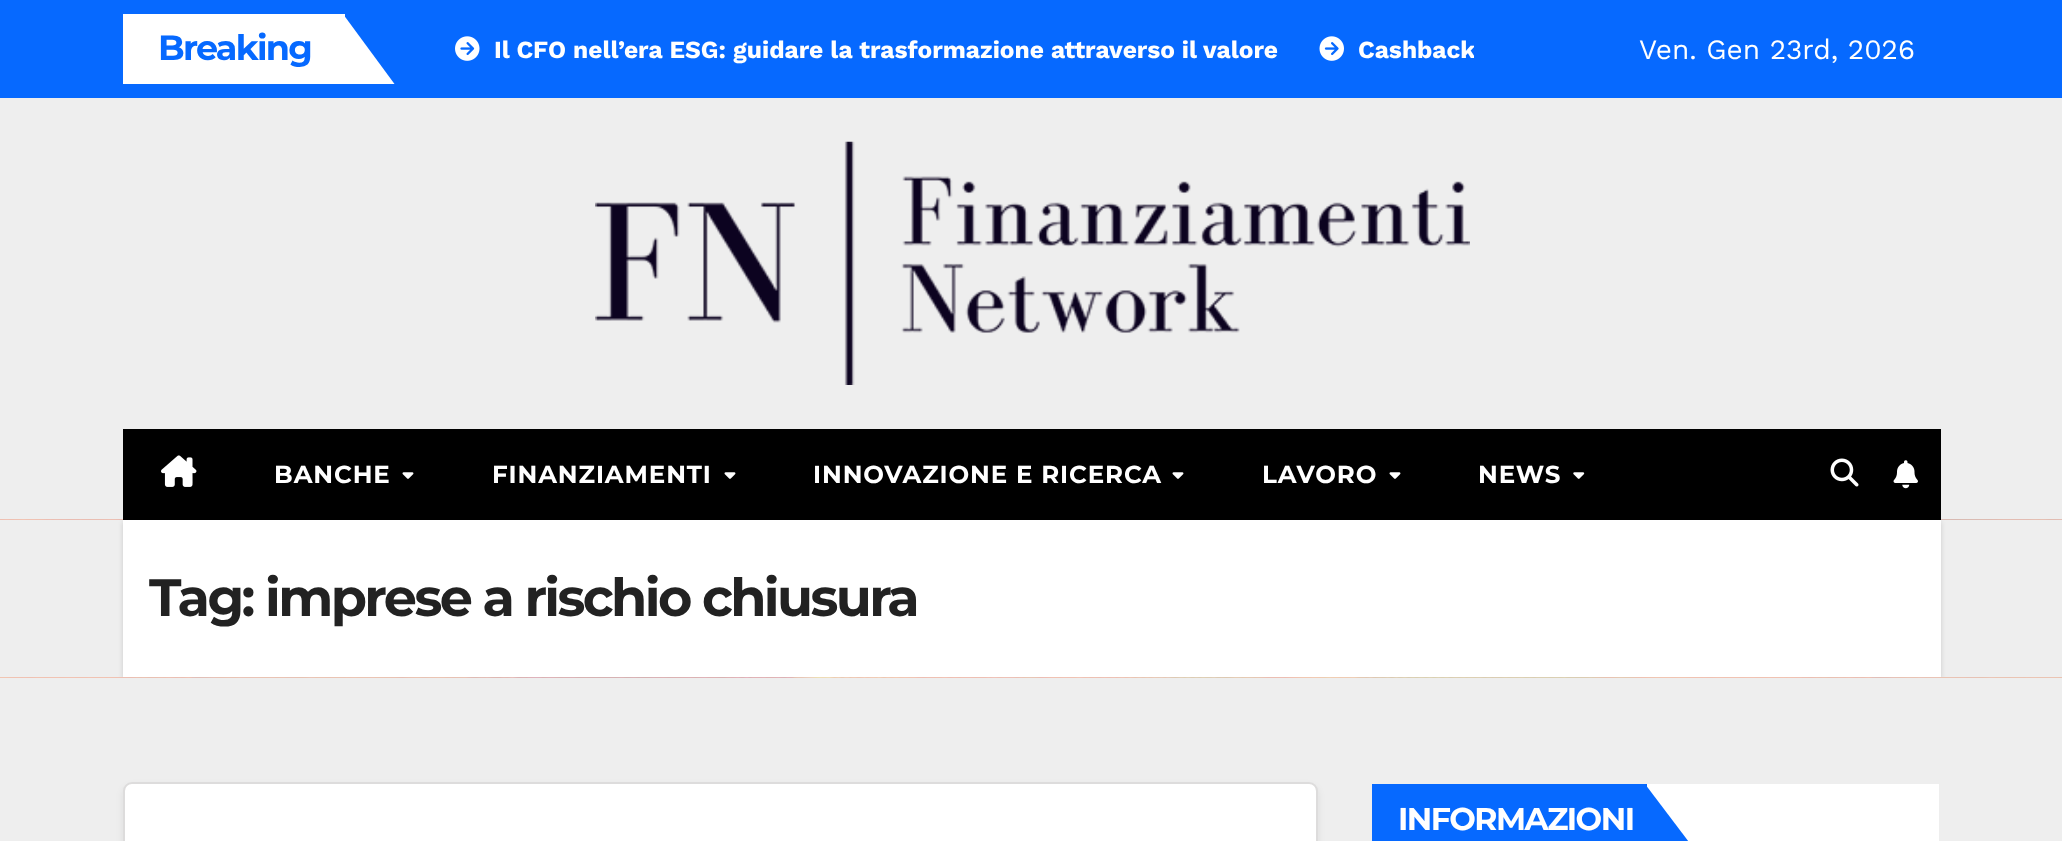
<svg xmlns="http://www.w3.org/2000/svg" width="2062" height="841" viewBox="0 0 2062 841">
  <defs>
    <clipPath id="clip1"><rect x="123" y="14" width="1351" height="70"/></clipPath>
    <clipPath id="clip2"><rect x="420" y="23" width="1054" height="61"/></clipPath>
    <clipPath id="clip3"><rect x="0" y="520" width="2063" height="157"/></clipPath>
    <filter id="blur1" x="-50%" y="-200%" width="200%" height="500%"><feGaussianBlur stdDeviation="2.5"/></filter>
    <filter id="blur2" x="-50%" y="-200%" width="200%" height="500%"><feGaussianBlur stdDeviation="3.5"/></filter>
  </defs>
  <rect width="100%" height="100%" fill="#eeeeee"/>
  <rect x="0" y="0" width="2062" height="98" fill="#0669ff"/>
  <rect x="123" y="14" width="222" height="70" fill="#ffffff"/>
  <text x="158" y="60" font-family="Montserrat" font-size="35" font-weight="bold" letter-spacing="-1.75" fill="#0669ff">Breaking</text>
  <g clip-path="url(#clip1)">
    <path d="M343 86V14L396 86Z" fill="#ffffff"/>
  </g>
  <image x="455" y="36" width="25" height="25" href="img1.png"/>
  <text x="494" y="58" font-family="Work Sans" font-size="24.5" font-weight="bold" fill="#ffffff">Il CFO nell’era ESG: guidare la trasformazione attraverso il valore</text>
  <image x="1319" y="36" width="25" height="25" href="img2.png"/>
  <g clip-path="url(#clip2)">
    <text x="1358" y="58" font-family="Work Sans" font-size="24.5" font-weight="bold" fill="#ffffff">Cashback</text>
  </g>
  <text x="1639" y="59" font-family="Work Sans" font-size="28" fill="#ffffff">Ven. Gen 23rd, 2026</text>
  <image x="595" y="141" width="875" height="244" href="img3.png"/>
  <image x="0" y="519" width="2062" height="159" href="img9.png"/>
  <rect x="123" y="429" width="1818" height="91" fill="#000000"/>
  <image x="161" y="455" width="36" height="32" href="img4.png"/>
  <text x="274" y="483" font-family="Montserrat" font-size="24.5" font-weight="bold" letter-spacing="0.9" fill="#ffffff">BANCHE</text>
  <image x="402" y="472" width="12" height="7" href="img5.png"/>
  <text x="492" y="483" font-family="Montserrat" font-size="24.5" font-weight="bold" letter-spacing="0.9" fill="#ffffff">FINANZIAMENTI</text>
  <image x="724" y="472" width="12" height="7" href="img5.png"/>
  <text x="813" y="483" font-family="Montserrat" font-size="24.5" font-weight="bold" letter-spacing="0.9" fill="#ffffff">INNOVAZIONE E RICERCA</text>
  <image x="1172" y="472" width="12" height="7" href="img5.png"/>
  <text x="1262" y="483" font-family="Montserrat" font-size="24.5" font-weight="bold" letter-spacing="0.9" fill="#ffffff">LAVORO</text>
  <image x="1389" y="472" width="12" height="7" href="img5.png"/>
  <text x="1478" y="483" font-family="Montserrat" font-size="24.5" font-weight="bold" letter-spacing="0.9" fill="#ffffff">NEWS</text>
  <image x="1573" y="472" width="12" height="7" href="img6.png"/>
  <image x="1830" y="458" width="29" height="29" href="img7.png"/>
  <image x="1893" y="460" width="25" height="29" href="img8.png"/>
  <rect x="0" y="520" width="2062" height="157" fill="#eeeeee"/>
  <g clip-path="url(#clip3)">
    <rect x="123" y="522" width="1818" height="157" fill="#000000" fill-opacity="0.15" filter="url(#blur1)"/>
  </g>
  <rect x="123" y="520" width="1818" height="157" fill="#ffffff"/>
  <text x="149" y="616" font-family="Montserrat" font-size="52.5" font-weight="bold" letter-spacing="-2.6" fill="#222222">Tag: imprese a rischio chiusura</text>
  <rect x="123" y="786" width="1195" height="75" rx="9" fill="#000000" fill-opacity="0.08" filter="url(#blur2)"/>
  <rect x="124" y="783" width="1193" height="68" rx="8" fill="#ffffff" stroke="#dddcdc" stroke-width="2"/>
  <rect x="1647" y="784" width="292" height="57" fill="#ffffff"/>
  <rect x="1372" y="784" width="275" height="57" fill="#0669ff"/>
  <text x="1398" y="830" font-family="Montserrat" font-size="31.5" font-weight="bold" letter-spacing="-1.5" fill="#ffffff">INFORMAZIONI</text>
  <path d="M1645 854V784L1698 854Z" fill="#0669ff"/>
</svg>
